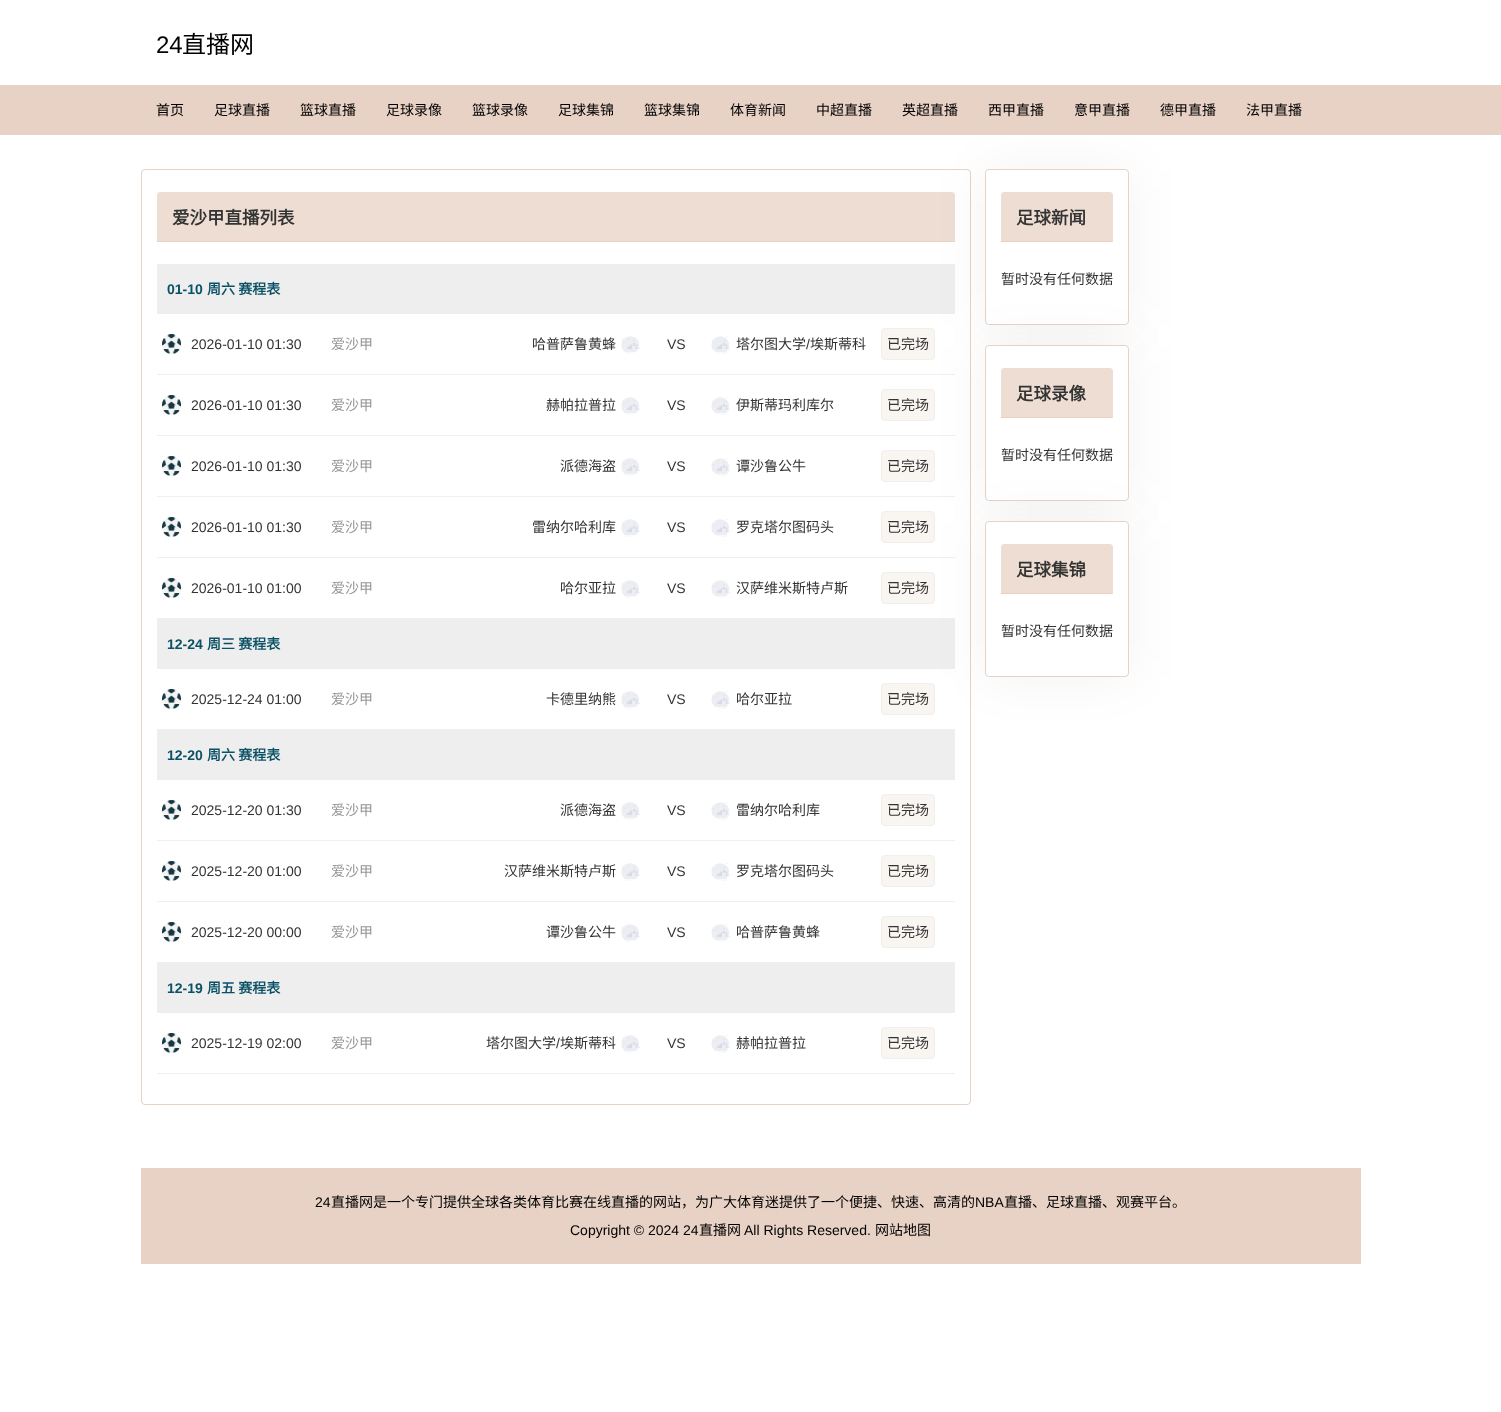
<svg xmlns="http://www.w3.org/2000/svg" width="1501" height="1412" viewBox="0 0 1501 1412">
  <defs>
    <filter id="blur1" x="-50%" y="-200%" width="200%" height="500%"><feGaussianBlur stdDeviation="26"/></filter>
  </defs>
  <rect width="100%" height="100%" fill="#ffffff"/>
  <text x="156" y="53" font-family="Liberation Sans" font-size="24" fill="#000000">24</text>
  <text x="182" y="53" font-family="Noto Sans CJK SC" font-size="24" fill="#000000">直播网</text>
  <rect x="141.5" y="169.5" width="829" height="935" rx="3.5" fill="none" stroke="#e8d1c5"/>
  <path d="M160 192H952C953.5 192 955 193.5 955 195V242H157V195C157 193.5 158.5 192 160 192Z" fill="#eeddd3"/>
  <rect x="157" y="241" width="798" height="1" fill="#e8d1c5"/>
  <rect x="157" y="264" width="798" height="50" fill="#eeeeee"/>
  <rect x="157" y="374" width="798" height="1" fill="#efefef"/>
  <rect x="881.5" y="328.5" width="53" height="31" rx="3.5" fill="#f9f6f2" stroke="#efefef"/>
  <rect x="881.5" y="389.5" width="53" height="31" rx="3.5" fill="#f9f6f2" stroke="#efefef"/>
  <rect x="985" y="170" width="144" height="156" rx="4" fill="#000000" fill-opacity="0.05" filter="url(#blur1)"/>
  <rect x="0" y="85" width="1501" height="50" fill="#e8d1c5"/>
  <text x="156" y="115" font-family="Noto Sans CJK SC" font-size="14" fill="#000000">首页</text>
  <text x="214" y="115" font-family="Noto Sans CJK SC" font-size="14" fill="#000000">足球直播</text>
  <text x="300" y="115" font-family="Noto Sans CJK SC" font-size="14" fill="#000000">篮球直播</text>
  <text x="386" y="115" font-family="Noto Sans CJK SC" font-size="14" fill="#000000">足球录像</text>
  <text x="472" y="115" font-family="Noto Sans CJK SC" font-size="14" fill="#000000">篮球录像</text>
  <text x="558" y="115" font-family="Noto Sans CJK SC" font-size="14" fill="#000000">足球集锦</text>
  <text x="644" y="115" font-family="Noto Sans CJK SC" font-size="14" fill="#000000">篮球集锦</text>
  <text x="730" y="115" font-family="Noto Sans CJK SC" font-size="14" fill="#000000">体育新闻</text>
  <text x="816" y="115" font-family="Noto Sans CJK SC" font-size="14" fill="#000000">中超直播</text>
  <text x="902" y="115" font-family="Noto Sans CJK SC" font-size="14" fill="#000000">英超直播</text>
  <text x="988" y="115" font-family="Noto Sans CJK SC" font-size="14" fill="#000000">西甲直播</text>
  <text x="1074" y="115" font-family="Noto Sans CJK SC" font-size="14" fill="#000000">意甲直播</text>
  <text x="1160" y="115" font-family="Noto Sans CJK SC" font-size="14" fill="#000000">德甲直播</text>
  <text x="1246" y="115" font-family="Noto Sans CJK SC" font-size="14" fill="#000000">法甲直播</text>
  <text x="172" y="224" font-family="Noto Sans CJK SC" font-size="17.5" font-weight="bold" fill="#333333">爱沙甲直播列表</text>
  <text x="167" y="294" font-family="Liberation Sans" font-size="14" font-weight="bold" fill="#0a5165">01-10</text>
  <text x="207" y="294" font-family="Noto Sans CJK SC" font-size="14" font-weight="bold" fill="#0a5165">周六 赛程表</text>
  <image x="162" y="334" width="19" height="20" href="img1.png"/>
  <text x="191" y="349" font-family="Liberation Sans" font-size="14" fill="#333333">2026-01-10 01:30</text>
  <text x="331" y="349" font-family="Noto Sans CJK SC" font-size="14" fill="#959595">爱沙甲</text>
  <text x="532" y="349" font-family="Noto Sans CJK SC" font-size="14" fill="#333333">哈普萨鲁黄蜂</text>
  <image x="621" y="335" width="19" height="19" href="img2.png"/>
  <text x="667" y="349" font-family="Liberation Sans" font-size="14" fill="#333333">VS</text>
  <image x="711" y="336" width="19" height="18" href="img3.png"/>
  <text x="736" y="349" font-family="Noto Sans CJK SC" font-size="14" fill="#333333">塔尔图大学</text>
  <text x="806" y="349" font-family="Liberation Sans" font-size="14" fill="#333333">/</text>
  <text x="810" y="349" font-family="Noto Sans CJK SC" font-size="14" fill="#333333">埃斯蒂科</text>
  <text x="887" y="349" font-family="Noto Sans CJK SC" font-size="14" fill="#333333">已完场</text>
  <rect x="157" y="435" width="798" height="1" fill="#efefef"/>
  <image x="162" y="395" width="19" height="20" href="img1.png"/>
  <text x="191" y="410" font-family="Liberation Sans" font-size="14" fill="#333333">2026-01-10 01:30</text>
  <text x="331" y="410" font-family="Noto Sans CJK SC" font-size="14" fill="#959595">爱沙甲</text>
  <text x="546" y="410" font-family="Noto Sans CJK SC" font-size="14" fill="#333333">赫帕拉普拉</text>
  <image x="621" y="396" width="19" height="19" href="img2.png"/>
  <text x="667" y="410" font-family="Liberation Sans" font-size="14" fill="#333333">VS</text>
  <image x="711" y="397" width="19" height="18" href="img3.png"/>
  <text x="736" y="410" font-family="Noto Sans CJK SC" font-size="14" fill="#333333">伊斯蒂玛利库尔</text>
  <text x="887" y="410" font-family="Noto Sans CJK SC" font-size="14" fill="#333333">已完场</text>
  <rect x="157" y="496" width="798" height="1" fill="#efefef"/>
  <image x="162" y="456" width="19" height="20" href="img1.png"/>
  <text x="191" y="471" font-family="Liberation Sans" font-size="14" fill="#333333">2026-01-10 01:30</text>
  <text x="331" y="471" font-family="Noto Sans CJK SC" font-size="14" fill="#959595">爱沙甲</text>
  <text x="560" y="471" font-family="Noto Sans CJK SC" font-size="14" fill="#333333">派德海盗</text>
  <image x="621" y="457" width="19" height="19" href="img2.png"/>
  <text x="667" y="471" font-family="Liberation Sans" font-size="14" fill="#333333">VS</text>
  <image x="711" y="458" width="19" height="18" href="img4.png"/>
  <text x="736" y="471" font-family="Noto Sans CJK SC" font-size="14" fill="#333333">谭沙鲁公牛</text>
  <rect x="881.5" y="450.5" width="53" height="31" rx="3.5" fill="#f9f6f2" stroke="#efefef"/>
  <text x="887" y="471" font-family="Noto Sans CJK SC" font-size="14" fill="#333333">已完场</text>
  <rect x="157" y="557" width="798" height="1" fill="#efefef"/>
  <image x="162" y="517" width="19" height="20" href="img1.png"/>
  <text x="191" y="532" font-family="Liberation Sans" font-size="14" fill="#333333">2026-01-10 01:30</text>
  <text x="331" y="532" font-family="Noto Sans CJK SC" font-size="14" fill="#959595">爱沙甲</text>
  <text x="532" y="532" font-family="Noto Sans CJK SC" font-size="14" fill="#333333">雷纳尔哈利库</text>
  <image x="621" y="518" width="19" height="19" href="img2.png"/>
  <text x="667" y="532" font-family="Liberation Sans" font-size="14" fill="#333333">VS</text>
  <image x="711" y="519" width="19" height="18" href="img3.png"/>
  <text x="736" y="532" font-family="Noto Sans CJK SC" font-size="14" fill="#333333">罗克塔尔图码头</text>
  <rect x="881.5" y="511.5" width="53" height="31" rx="3.5" fill="#f9f6f2" stroke="#efefef"/>
  <text x="887" y="532" font-family="Noto Sans CJK SC" font-size="14" fill="#333333">已完场</text>
  <rect x="157" y="618" width="798" height="1" fill="#efefef"/>
  <image x="162" y="578" width="19" height="20" href="img1.png"/>
  <text x="191" y="593" font-family="Liberation Sans" font-size="14" fill="#333333">2026-01-10 01:00</text>
  <text x="331" y="593" font-family="Noto Sans CJK SC" font-size="14" fill="#959595">爱沙甲</text>
  <text x="560" y="593" font-family="Noto Sans CJK SC" font-size="14" fill="#333333">哈尔亚拉</text>
  <image x="621" y="579" width="19" height="19" href="img2.png"/>
  <text x="667" y="593" font-family="Liberation Sans" font-size="14" fill="#333333">VS</text>
  <image x="711" y="580" width="19" height="18" href="img4.png"/>
  <text x="736" y="593" font-family="Noto Sans CJK SC" font-size="14" fill="#333333">汉萨维米斯特卢斯</text>
  <rect x="881.5" y="572.5" width="53" height="31" rx="3.5" fill="#f9f6f2" stroke="#efefef"/>
  <text x="887" y="593" font-family="Noto Sans CJK SC" font-size="14" fill="#333333">已完场</text>
  <rect x="157" y="619" width="798" height="50" fill="#eeeeee"/>
  <text x="167" y="649" font-family="Liberation Sans" font-size="14" font-weight="bold" fill="#0a5165">12-24</text>
  <text x="207" y="649" font-family="Noto Sans CJK SC" font-size="14" font-weight="bold" fill="#0a5165">周三 赛程表</text>
  <rect x="157" y="729" width="798" height="1" fill="#efefef"/>
  <image x="162" y="689" width="19" height="20" href="img1.png"/>
  <text x="191" y="704" font-family="Liberation Sans" font-size="14" fill="#333333">2025-12-24 01:00</text>
  <text x="331" y="704" font-family="Noto Sans CJK SC" font-size="14" fill="#959595">爱沙甲</text>
  <text x="546" y="704" font-family="Noto Sans CJK SC" font-size="14" fill="#333333">卡德里纳熊</text>
  <image x="621" y="690" width="19" height="19" href="img2.png"/>
  <text x="667" y="704" font-family="Liberation Sans" font-size="14" fill="#333333">VS</text>
  <image x="711" y="691" width="19" height="18" href="img4.png"/>
  <text x="736" y="704" font-family="Noto Sans CJK SC" font-size="14" fill="#333333">哈尔亚拉</text>
  <rect x="881.5" y="683.5" width="53" height="31" rx="3.5" fill="#f9f6f2" stroke="#efefef"/>
  <text x="887" y="704" font-family="Noto Sans CJK SC" font-size="14" fill="#333333">已完场</text>
  <rect x="157" y="730" width="798" height="50" fill="#eeeeee"/>
  <text x="167" y="760" font-family="Liberation Sans" font-size="14" font-weight="bold" fill="#0a5165">12-20</text>
  <text x="207" y="760" font-family="Noto Sans CJK SC" font-size="14" font-weight="bold" fill="#0a5165">周六 赛程表</text>
  <rect x="157" y="840" width="798" height="1" fill="#efefef"/>
  <image x="162" y="800" width="19" height="20" href="img1.png"/>
  <text x="191" y="815" font-family="Liberation Sans" font-size="14" fill="#333333">2025-12-20 01:30</text>
  <text x="331" y="815" font-family="Noto Sans CJK SC" font-size="14" fill="#959595">爱沙甲</text>
  <text x="560" y="815" font-family="Noto Sans CJK SC" font-size="14" fill="#333333">派德海盗</text>
  <image x="621" y="801" width="19" height="19" href="img2.png"/>
  <text x="667" y="815" font-family="Liberation Sans" font-size="14" fill="#333333">VS</text>
  <image x="711" y="802" width="19" height="18" href="img3.png"/>
  <text x="736" y="815" font-family="Noto Sans CJK SC" font-size="14" fill="#333333">雷纳尔哈利库</text>
  <rect x="881.5" y="794.5" width="53" height="31" rx="3.5" fill="#f9f6f2" stroke="#efefef"/>
  <text x="887" y="815" font-family="Noto Sans CJK SC" font-size="14" fill="#333333">已完场</text>
  <rect x="157" y="901" width="798" height="1" fill="#efefef"/>
  <image x="162" y="861" width="19" height="20" href="img1.png"/>
  <text x="191" y="876" font-family="Liberation Sans" font-size="14" fill="#333333">2025-12-20 01:00</text>
  <text x="331" y="876" font-family="Noto Sans CJK SC" font-size="14" fill="#959595">爱沙甲</text>
  <text x="504" y="876" font-family="Noto Sans CJK SC" font-size="14" fill="#333333">汉萨维米斯特卢斯</text>
  <image x="621" y="862" width="19" height="19" href="img2.png"/>
  <text x="667" y="876" font-family="Liberation Sans" font-size="14" fill="#333333">VS</text>
  <image x="711" y="863" width="19" height="18" href="img3.png"/>
  <text x="736" y="876" font-family="Noto Sans CJK SC" font-size="14" fill="#333333">罗克塔尔图码头</text>
  <rect x="881.5" y="855.5" width="53" height="31" rx="3.5" fill="#f9f6f2" stroke="#efefef"/>
  <text x="887" y="876" font-family="Noto Sans CJK SC" font-size="14" fill="#333333">已完场</text>
  <rect x="157" y="962" width="798" height="1" fill="#efefef"/>
  <image x="162" y="922" width="19" height="20" href="img1.png"/>
  <text x="191" y="937" font-family="Liberation Sans" font-size="14" fill="#333333">2025-12-20 00:00</text>
  <text x="331" y="937" font-family="Noto Sans CJK SC" font-size="14" fill="#959595">爱沙甲</text>
  <text x="546" y="937" font-family="Noto Sans CJK SC" font-size="14" fill="#333333">谭沙鲁公牛</text>
  <image x="621" y="923" width="19" height="19" href="img2.png"/>
  <text x="667" y="937" font-family="Liberation Sans" font-size="14" fill="#333333">VS</text>
  <image x="711" y="924" width="19" height="18" href="img4.png"/>
  <text x="736" y="937" font-family="Noto Sans CJK SC" font-size="14" fill="#333333">哈普萨鲁黄蜂</text>
  <rect x="881.5" y="916.5" width="53" height="31" rx="3.5" fill="#f9f6f2" stroke="#efefef"/>
  <text x="887" y="937" font-family="Noto Sans CJK SC" font-size="14" fill="#333333">已完场</text>
  <rect x="157" y="963" width="798" height="50" fill="#eeeeee"/>
  <text x="167" y="993" font-family="Liberation Sans" font-size="14" font-weight="bold" fill="#0a5165">12-19</text>
  <text x="207" y="993" font-family="Noto Sans CJK SC" font-size="14" font-weight="bold" fill="#0a5165">周五 赛程表</text>
  <rect x="157" y="1073" width="798" height="1" fill="#efefef"/>
  <image x="162" y="1033" width="19" height="20" href="img1.png"/>
  <text x="191" y="1048" font-family="Liberation Sans" font-size="14" fill="#333333">2025-12-19 02:00</text>
  <text x="331" y="1048" font-family="Noto Sans CJK SC" font-size="14" fill="#959595">爱沙甲</text>
  <text x="486" y="1048" font-family="Noto Sans CJK SC" font-size="14" fill="#333333">塔尔图大学</text>
  <text x="556" y="1048" font-family="Liberation Sans" font-size="14" fill="#333333">/</text>
  <text x="560" y="1048" font-family="Noto Sans CJK SC" font-size="14" fill="#333333">埃斯蒂科</text>
  <image x="621" y="1034" width="19" height="19" href="img5.png"/>
  <text x="667" y="1048" font-family="Liberation Sans" font-size="14" fill="#333333">VS</text>
  <image x="711" y="1035" width="19" height="18" href="img6.png"/>
  <text x="736" y="1048" font-family="Noto Sans CJK SC" font-size="14" fill="#333333">赫帕拉普拉</text>
  <rect x="881.5" y="1027.5" width="53" height="31" rx="3.5" fill="#f9f6f2" stroke="#efefef"/>
  <text x="887" y="1048" font-family="Noto Sans CJK SC" font-size="14" fill="#333333">已完场</text>
  <rect x="985.5" y="169.5" width="143" height="155" rx="3.5" fill="#ffffff" stroke="#e8d1c5"/>
  <path d="M1004 192H1110C1111.5 192 1113 193.5 1113 195V242H1001V195C1001 193.5 1002.5 192 1004 192Z" fill="#eeddd3"/>
  <rect x="1001" y="241" width="112" height="1" fill="#e8d1c5"/>
  <text x="1016" y="224" font-family="Noto Sans CJK SC" font-size="17.5" font-weight="bold" fill="#333333">足球新闻</text>
  <rect x="985" y="346" width="144" height="156" rx="4" fill="#000000" fill-opacity="0.05" filter="url(#blur1)"/>
  <text x="1001" y="284" font-family="Noto Sans CJK SC" font-size="14" fill="#333333">暂时没有任何数据</text>
  <rect x="985.5" y="345.5" width="143" height="155" rx="3.5" fill="#ffffff" stroke="#e8d1c5"/>
  <path d="M1004 368H1110C1111.5 368 1113 369.5 1113 371V418H1001V371C1001 369.5 1002.5 368 1004 368Z" fill="#eeddd3"/>
  <rect x="1001" y="417" width="112" height="1" fill="#e8d1c5"/>
  <text x="1016" y="400" font-family="Noto Sans CJK SC" font-size="17.5" font-weight="bold" fill="#333333">足球录像</text>
  <rect x="985" y="522" width="144" height="156" rx="4" fill="#000000" fill-opacity="0.05" filter="url(#blur1)"/>
  <text x="1001" y="460" font-family="Noto Sans CJK SC" font-size="14" fill="#333333">暂时没有任何数据</text>
  <rect x="985.5" y="521.5" width="143" height="155" rx="3.5" fill="#ffffff" stroke="#e8d1c5"/>
  <path d="M1004 544H1110C1111.5 544 1113 545.5 1113 547V594H1001V547C1001 545.5 1002.5 544 1004 544Z" fill="#eeddd3"/>
  <rect x="1001" y="593" width="112" height="1" fill="#e8d1c5"/>
  <text x="1016" y="576" font-family="Noto Sans CJK SC" font-size="17.5" font-weight="bold" fill="#333333">足球集锦</text>
  <text x="1001" y="636" font-family="Noto Sans CJK SC" font-size="14" fill="#333333">暂时没有任何数据</text>
  <rect x="141" y="1168" width="1220" height="96" fill="#e8d1c5"/>
  <text x="315" y="1207" font-family="Liberation Sans" font-size="14" fill="#000000">24</text>
  <text x="331" y="1207" font-family="Noto Sans CJK SC" font-size="14" fill="#000000">直播网是一个专门提供全球各类体育比赛在线直播的网站，为广大体育迷提供了一个便捷、快速、高清的</text>
  <text x="975" y="1207" font-family="Liberation Sans" font-size="14" fill="#000000">NBA</text>
  <text x="1004" y="1207" font-family="Noto Sans CJK SC" font-size="14" fill="#000000">直播、足球直播、观赛平台。</text>
  <text x="570" y="1235" font-family="Liberation Sans" font-size="14" fill="#000000">Copyright © 2024 24</text>
  <text x="699" y="1235" font-family="Noto Sans CJK SC" font-size="14" fill="#000000">直播网</text>
  <text x="744" y="1235" font-family="Liberation Sans" font-size="14" fill="#000000">All Rights Reserved.</text>
  <text x="875" y="1235" font-family="Noto Sans CJK SC" font-size="14" fill="#000000">网站地图</text>
</svg>
